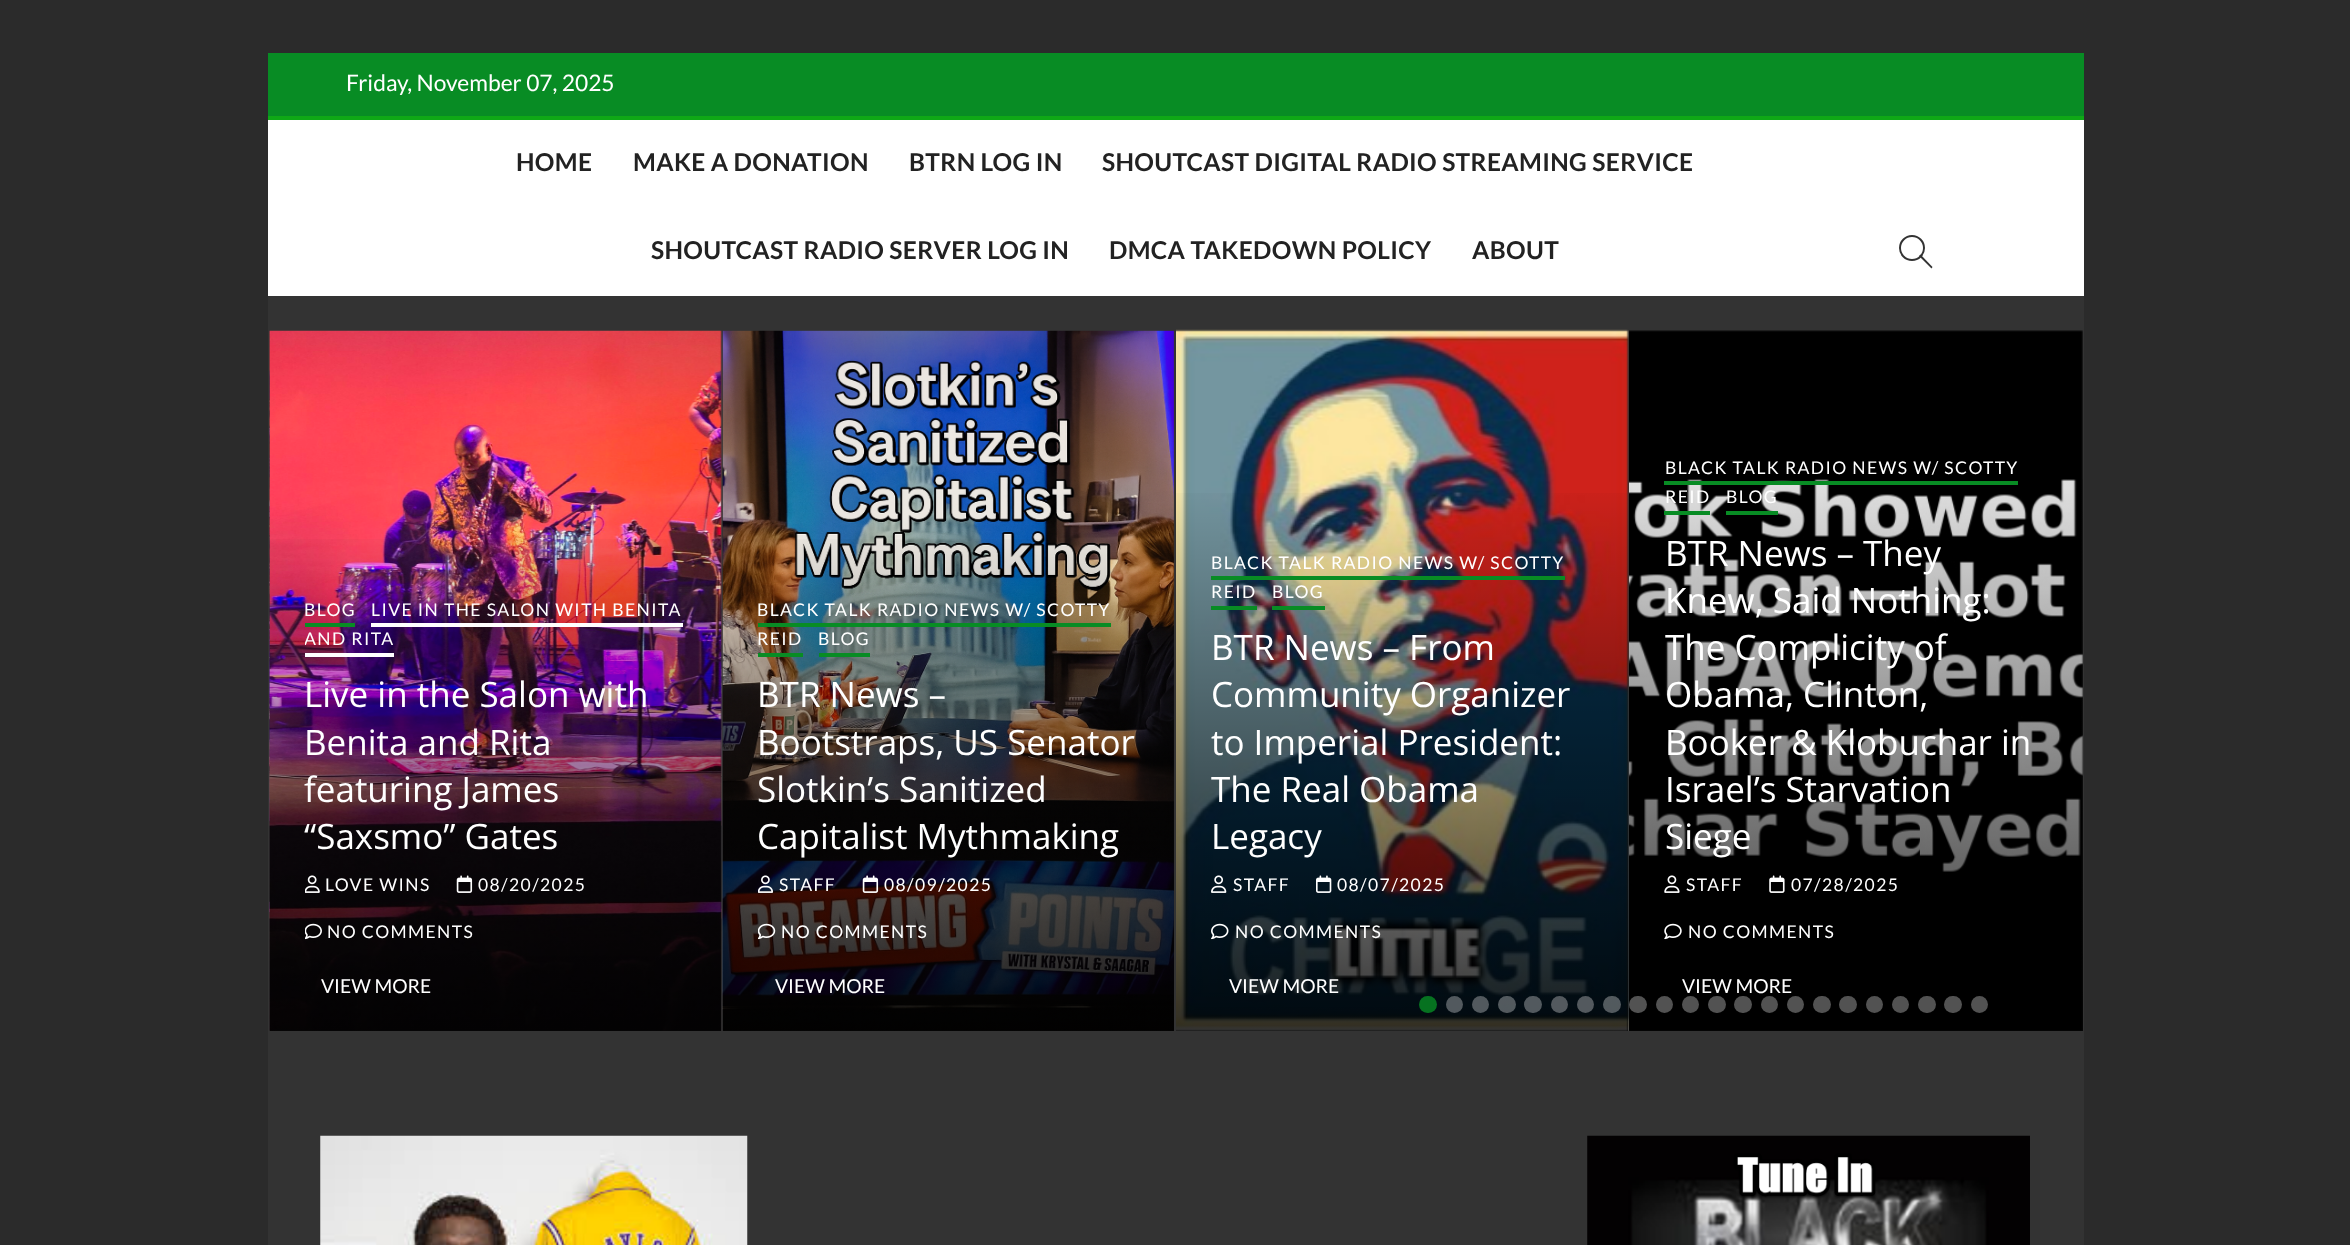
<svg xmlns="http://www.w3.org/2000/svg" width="2350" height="1245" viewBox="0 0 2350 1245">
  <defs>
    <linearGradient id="g1" gradientUnits="userSpaceOnUse" x1="495" y1="1031" x2="495" y2="525"><stop offset="0" stop-color="#000000" stop-opacity="0.8"/><stop offset="1" stop-color="#000000" stop-opacity="0"/></linearGradient>
    <clipPath id="clip1"><rect x="305" y="595" width="381" height="75"/></clipPath>
    <linearGradient id="g2" gradientUnits="userSpaceOnUse" x1="949" y1="1031" x2="949" y2="525"><stop offset="0" stop-color="#000000" stop-opacity="0.8"/><stop offset="1" stop-color="#000000" stop-opacity="0"/></linearGradient>
    <linearGradient id="g3" gradientUnits="userSpaceOnUse" x1="1402" y1="1031" x2="1402" y2="478"><stop offset="0" stop-color="#000000" stop-opacity="0.8"/><stop offset="1" stop-color="#000000" stop-opacity="0"/></linearGradient>
    <linearGradient id="g4" gradientUnits="userSpaceOnUse" x1="1856" y1="1031" x2="1856" y2="383"><stop offset="0" stop-color="#000000" stop-opacity="0.8"/><stop offset="1" stop-color="#000000" stop-opacity="0"/></linearGradient>
  </defs>
  <rect width="100%" height="100%" fill="#2b2b2b"/>
  <rect x="268" y="296" width="1816" height="949" fill="#333333"/>
  <rect x="268" y="53" width="1816" height="63" fill="#088c24"/>
  <text x="346" y="91" font-family="Lato" font-size="22.75" fill="#ffffff">Friday, November 07, 2025</text>
  <rect x="268" y="120" width="1816" height="176" fill="#ffffff"/>
  <rect x="268" y="116" width="1816" height="4" fill="#0fa816"/>
  <text x="516" y="171" font-family="Lato" font-size="24.5" font-weight="bold" letter-spacing="0.35" fill="#222222">HOME</text>
  <text x="633" y="171" font-family="Lato" font-size="24.5" font-weight="bold" letter-spacing="0.35" fill="#222222">MAKE A DONATION</text>
  <text x="909" y="171" font-family="Lato" font-size="24.5" font-weight="bold" letter-spacing="0.35" fill="#222222">BTRN LOG IN</text>
  <text x="1102" y="171" font-family="Lato" font-size="24.5" font-weight="bold" letter-spacing="0.35" fill="#222222">SHOUTCAST DIGITAL RADIO STREAMING SERVICE</text>
  <text x="651" y="259" font-family="Lato" font-size="24.5" font-weight="bold" letter-spacing="0.35" fill="#222222">SHOUTCAST RADIO SERVER LOG IN</text>
  <text x="1109" y="259" font-family="Lato" font-size="24.5" font-weight="bold" letter-spacing="0.35" fill="#222222">DMCA TAKEDOWN POLICY</text>
  <text x="1472" y="259" font-family="Lato" font-size="24.5" font-weight="bold" letter-spacing="0.35" fill="#222222">ABOUT</text>
  <circle cx="1912" cy="248" r="12" fill="none" stroke="#333333" stroke-width="2"/>
  <path d="M1919 256L1920.5 254.5L1932.5 267L1931.5 268.5Z" fill="#333333"/>
  <image x="269" y="330" width="453" height="701" href="img1.png"/>
  <rect x="270" y="539" width="451" height="492" fill="url(#g1)"/>
  <text x="304" y="616" font-family="Lato" font-size="17.5" letter-spacing="1.4" fill="#ffffff">BLOG</text>
  <rect x="305" y="623" width="50" height="4" fill="#088c24"/>
  <text x="371" y="616" font-family="Lato" font-size="17.5" letter-spacing="1.4" fill="#ffffff">LIVE IN THE SALON WITH BENITA</text>
  <g clip-path="url(#clip1)">
    <text x="304" y="645" font-family="Lato" font-size="17.5" letter-spacing="1.4" fill="#ffffff">AND RITA</text>
  </g>
  <rect x="371" y="623" width="312" height="4" fill="#ffffff"/>
  <rect x="305" y="653" width="89" height="4" fill="#ffffff"/>
  <text x="304" y="707" font-family="Open Sans" font-size="35" fill="#ffffff">Live in the Salon with</text>
  <text x="304" y="755" font-family="Open Sans" font-size="35" fill="#ffffff">Benita and Rita</text>
  <text x="304" y="802" font-family="Open Sans" font-size="35" fill="#ffffff">featuring James</text>
  <text x="304" y="849" font-family="Open Sans" font-size="35" fill="#ffffff">“Saxsmo” Gates</text>
  <image x="305" y="875" width="15" height="18" href="img2.png"/>
  <text x="325" y="891" font-family="Lato" font-size="17.5" letter-spacing="1.4" fill="#ffffff">LOVE WINS</text>
  <image x="456" y="875" width="17" height="18" href="img3.png"/>
  <text x="478" y="891" font-family="Lato" font-size="17.5" letter-spacing="1.4" fill="#ffffff">08/20/2025</text>
  <image x="305" y="923" width="17" height="17" href="img4.png"/>
  <text x="327" y="938" font-family="Lato" font-size="17.5" letter-spacing="1.4" fill="#ffffff">NO COMMENTS</text>
  <text x="321" y="993" font-family="Lato" font-size="19.25" fill="#ffffff">VIEW MORE</text>
  <image x="722" y="330" width="452" height="701" href="img5.png"/>
  <rect x="723" y="539" width="451" height="492" fill="url(#g2)"/>
  <text x="757" y="616" font-family="Lato" font-size="17.5" letter-spacing="1.4" fill="#ffffff">BLACK TALK RADIO NEWS W/ SCOTTY</text>
  <text x="757" y="645" font-family="Lato" font-size="17.5" letter-spacing="1.4" fill="#ffffff">REID</text>
  <rect x="758" y="623" width="353" height="4" fill="#088c24"/>
  <rect x="758" y="653" width="45" height="4" fill="#088c24"/>
  <text x="818" y="645" font-family="Lato" font-size="17.5" letter-spacing="1.4" fill="#ffffff">BLOG</text>
  <rect x="819" y="653" width="51" height="4" fill="#088c24"/>
  <text x="757" y="707" font-family="Open Sans" font-size="35" fill="#ffffff">BTR News –</text>
  <text x="757" y="755" font-family="Open Sans" font-size="35" fill="#ffffff">Bootstraps, US Senator</text>
  <text x="757" y="802" font-family="Open Sans" font-size="35" fill="#ffffff">Slotkin’s Sanitized</text>
  <text x="757" y="849" font-family="Open Sans" font-size="35" fill="#ffffff">Capitalist Mythmaking</text>
  <image x="758" y="875" width="16" height="18" href="img6.png"/>
  <text x="779" y="891" font-family="Lato" font-size="17.5" letter-spacing="1.4" fill="#ffffff">STAFF</text>
  <image x="862" y="875" width="17" height="18" href="img7.png"/>
  <text x="884" y="891" font-family="Lato" font-size="17.5" letter-spacing="1.4" fill="#ffffff">08/09/2025</text>
  <image x="758" y="923" width="18" height="17" href="img8.png"/>
  <text x="781" y="938" font-family="Lato" font-size="17.5" letter-spacing="1.4" fill="#ffffff">NO COMMENTS</text>
  <text x="775" y="993" font-family="Lato" font-size="19.25" fill="#ffffff">VIEW MORE</text>
  <image x="1176" y="329" width="453" height="702" href="img9.png"/>
  <rect x="1176" y="493" width="452" height="538" fill="url(#g3)"/>
  <text x="1211" y="569" font-family="Lato" font-size="17.5" letter-spacing="1.4" fill="#ffffff">BLACK TALK RADIO NEWS W/ SCOTTY</text>
  <text x="1211" y="598" font-family="Lato" font-size="17.5" letter-spacing="1.4" fill="#ffffff">REID</text>
  <rect x="1211" y="576" width="354" height="4" fill="#088c24"/>
  <rect x="1211" y="606" width="46" height="4" fill="#088c24"/>
  <text x="1272" y="598" font-family="Lato" font-size="17.5" letter-spacing="1.4" fill="#ffffff">BLOG</text>
  <rect x="1272" y="606" width="53" height="4" fill="#088c24"/>
  <text x="1211" y="660" font-family="Open Sans" font-size="35" fill="#ffffff">BTR News – From</text>
  <text x="1211" y="707" font-family="Open Sans" font-size="35" fill="#ffffff">Community Organizer</text>
  <text x="1211" y="755" font-family="Open Sans" font-size="35" fill="#ffffff">to Imperial President:</text>
  <text x="1211" y="802" font-family="Open Sans" font-size="35" fill="#ffffff">The Real Obama</text>
  <text x="1211" y="849" font-family="Open Sans" font-size="35" fill="#ffffff">Legacy</text>
  <image x="1211" y="875" width="16" height="18" href="img10.png"/>
  <text x="1233" y="891" font-family="Lato" font-size="17.5" letter-spacing="1.4" fill="#ffffff">STAFF</text>
  <image x="1316" y="875" width="16" height="18" href="img11.png"/>
  <text x="1337" y="891" font-family="Lato" font-size="17.5" letter-spacing="1.4" fill="#ffffff">08/07/2025</text>
  <image x="1211" y="923" width="18" height="17" href="img12.png"/>
  <text x="1235" y="938" font-family="Lato" font-size="17.5" letter-spacing="1.4" fill="#ffffff">NO COMMENTS</text>
  <text x="1229" y="993" font-family="Lato" font-size="19.25" fill="#ffffff">VIEW MORE</text>
  <image x="1629" y="330" width="454" height="701" href="img13.png"/>
  <rect x="1629" y="479" width="454" height="552" fill="url(#g4)"/>
  <text x="1665" y="474" font-family="Lato" font-size="17.5" letter-spacing="1.4" fill="#ffffff">BLACK TALK RADIO NEWS W/ SCOTTY</text>
  <text x="1665" y="503" font-family="Lato" font-size="17.5" letter-spacing="1.4" fill="#ffffff">REID</text>
  <rect x="1664" y="481" width="354" height="4" fill="#088c24"/>
  <rect x="1664" y="511" width="46" height="4" fill="#088c24"/>
  <text x="1726" y="503" font-family="Lato" font-size="17.5" letter-spacing="1.4" fill="#ffffff">BLOG</text>
  <rect x="1726" y="511" width="52" height="4" fill="#088c24"/>
  <text x="1665" y="566" font-family="Open Sans" font-size="35" fill="#ffffff">BTR News – They</text>
  <text x="1665" y="613" font-family="Open Sans" font-size="35" fill="#ffffff">Knew, Said Nothing:</text>
  <text x="1665" y="660" font-family="Open Sans" font-size="35" fill="#ffffff">The Complicity of</text>
  <text x="1665" y="707" font-family="Open Sans" font-size="35" fill="#ffffff">Obama, Clinton,</text>
  <text x="1665" y="755" font-family="Open Sans" font-size="35" fill="#ffffff">Booker &amp; Klobuchar in</text>
  <text x="1665" y="802" font-family="Open Sans" font-size="35" fill="#ffffff">Israel’s Starvation</text>
  <text x="1665" y="849" font-family="Open Sans" font-size="35" fill="#ffffff">Siege</text>
  <image x="1664" y="875" width="16" height="18" href="img14.png"/>
  <text x="1686" y="891" font-family="Lato" font-size="17.5" letter-spacing="1.4" fill="#ffffff">STAFF</text>
  <image x="1769" y="875" width="16" height="18" href="img15.png"/>
  <text x="1791" y="891" font-family="Lato" font-size="17.5" letter-spacing="1.4" fill="#ffffff">07/28/2025</text>
  <image x="1664" y="923" width="18" height="17" href="img16.png"/>
  <text x="1688" y="938" font-family="Lato" font-size="17.5" letter-spacing="1.4" fill="#ffffff">NO COMMENTS</text>
  <text x="1682" y="993" font-family="Lato" font-size="19.25" fill="#ffffff">VIEW MORE</text>
  <rect x="1419" y="996" width="18" height="17" rx="8.5" fill="#088c24" fill-opacity="0.8"/>
  <circle cx="1454.5" cy="1004.5" r="8.5" fill="#52595e"/>
  <circle cx="1480.5" cy="1004.5" r="8.5" fill="#52595e"/>
  <rect x="1498" y="996" width="18" height="17" rx="8.5" fill="#ffffff" fill-opacity="0.32"/>
  <rect x="1524" y="996" width="18" height="17" rx="8.5" fill="#52595e"/>
  <circle cx="1559.5" cy="1004.5" r="8.5" fill="#53595e"/>
  <circle cx="1585.5" cy="1004.5" r="8.5" fill="#53595e"/>
  <rect x="1603" y="996" width="18" height="17" rx="8.5" fill="#ffffff" fill-opacity="0.32"/>
  <rect x="1629" y="996" width="18" height="17" rx="8.5" fill="#525252"/>
  <circle cx="1664.5" cy="1004.5" r="8.5" fill="#525252"/>
  <circle cx="1690.5" cy="1004.5" r="8.5" fill="#525252"/>
  <rect x="1708" y="996" width="18" height="17" rx="8.5" fill="#525252"/>
  <rect x="1734" y="996" width="18" height="17" rx="8.5" fill="#525252"/>
  <circle cx="1769.5" cy="1004.5" r="8.5" fill="#525252"/>
  <circle cx="1795.5" cy="1004.5" r="8.5" fill="#525252"/>
  <rect x="1813" y="996" width="18" height="17" rx="8.5" fill="#525252"/>
  <rect x="1839" y="996" width="18" height="17" rx="8.5" fill="#525252"/>
  <circle cx="1874.5" cy="1004.5" r="8.5" fill="#525252"/>
  <circle cx="1900.5" cy="1004.5" r="8.5" fill="#525252"/>
  <rect x="1918" y="996" width="18" height="17" rx="8.5" fill="#525252"/>
  <rect x="1944" y="996" width="18" height="17" rx="8.5" fill="#525252"/>
  <circle cx="1979.5" cy="1004.5" r="8.5" fill="#525252"/>
  <image x="320" y="1135" width="428" height="110" href="img17.png"/>
  <image x="1587" y="1135" width="443" height="110" href="img18.png"/>
</svg>
